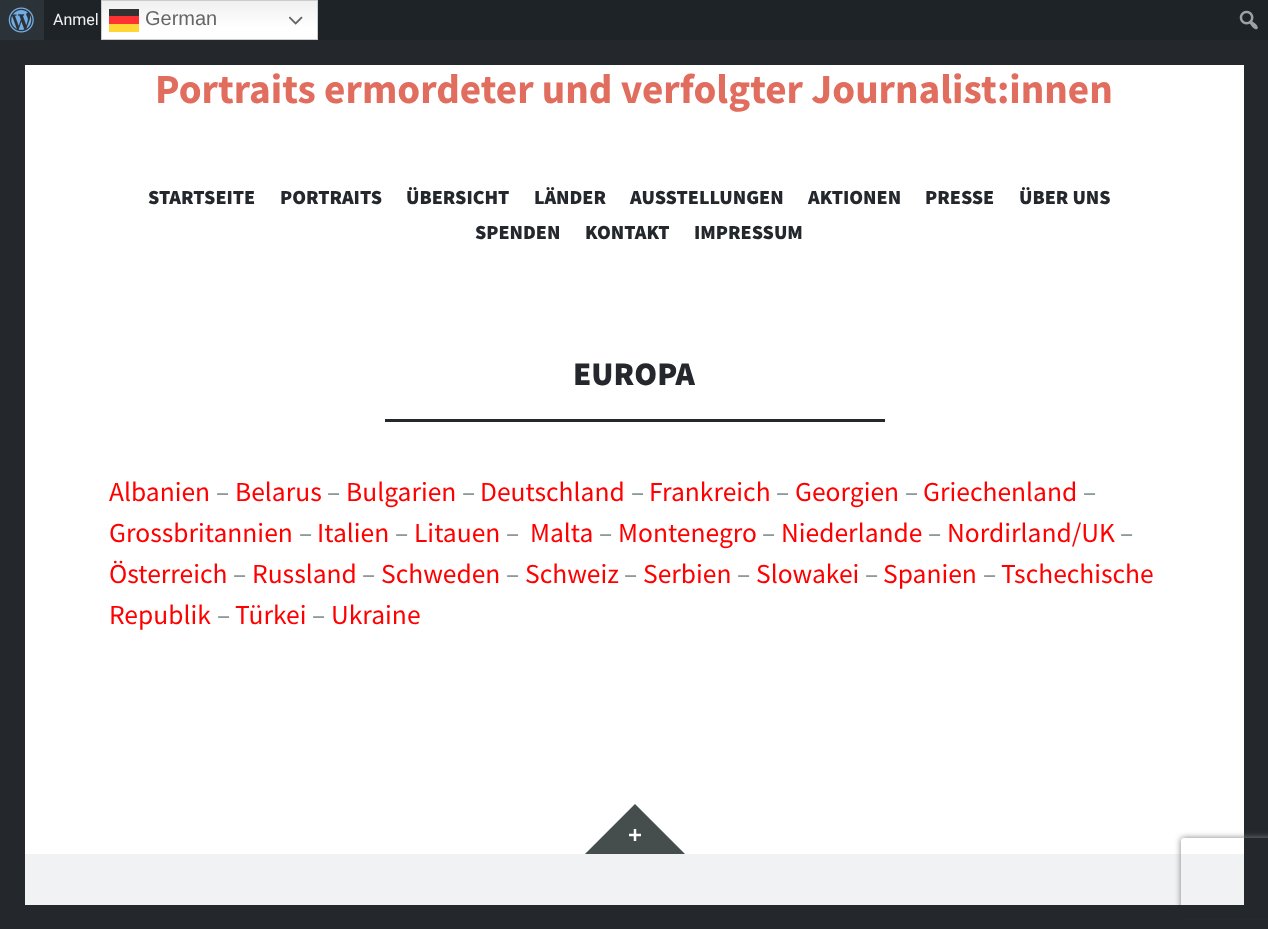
<svg xmlns="http://www.w3.org/2000/svg" width="1268" height="929" viewBox="0 0 1268 929">
  <defs>
    <linearGradient id="g1" gradientUnits="userSpaceOnUse" x1="209" y1="0" x2="209" y2="40"><stop offset="0" stop-color="#efefef"/><stop offset="0.7" stop-color="#ffffff"/></linearGradient>
    <linearGradient id="g2" gradientUnits="userSpaceOnUse" x1="209" y1="0" x2="209" y2="40"><stop offset="0" stop-color="#303030"/><stop offset="0.7" stop-color="#333333"/></linearGradient>
    <clipPath id="clip1"><path d="M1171 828H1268V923H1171ZM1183.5 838H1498.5C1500 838 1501 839 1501 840.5V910.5C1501 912 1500 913 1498.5 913H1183.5C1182 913 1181 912 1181 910.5V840.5C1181 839 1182 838 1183.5 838Z" clip-rule="evenodd"/></clipPath>
    <filter id="blur1" x="-50%" y="-200%" width="200%" height="500%"><feGaussianBlur stdDeviation="3"/></filter>
  </defs>
  <rect width="100%" height="100%" fill="#24282d"/>
  <rect x="44" y="0" width="1224" height="40" fill="#1d2327"/>
  <rect x="0" y="0" width="44" height="40" fill="#2c3338"/>
  <image x="8" y="7" width="26" height="26" href="img1.png"/>
  <text x="53" y="25" font-family="Roboto" font-size="16" fill="#f0f0f1">Anmel</text>
  <image x="1239" y="10" width="19" height="20" href="img2.png"/>
  <rect x="102" y="1" width="215" height="38" fill="url(#g1)"/>
  <rect x="109" y="9" width="30" height="7" fill="url(#g2)"/>
  <rect x="101.5" y="0.5" width="216" height="39" fill="none" stroke="#cccccc"/>
  <rect x="109" y="16" width="30" height="8" fill="#ff0000" fill-opacity="0.8"/>
  <text x="145" y="25" font-family="Liberation Sans" font-size="20" fill="#666666">German</text>
  <image x="289" y="16" width="14" height="9" href="img3.png"/>
  <rect x="109" y="24" width="30" height="8" fill="#ffd633"/>
  <rect x="25" y="65" width="1219" height="789" fill="#ffffff"/>
  <text x="155" y="103" font-family="Source Sans Pro" font-size="41.25" font-weight="bold" fill="#e06d5e">Portraits ermordeter und verfolgter Journalist:innen</text>
  <text x="148" y="204" font-family="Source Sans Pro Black" font-size="20" font-weight="900" fill="#24282d">STARTSEITE</text>
  <text x="280" y="204" font-family="Source Sans Pro Black" font-size="20" font-weight="900" fill="#24282d">PORTRAITS</text>
  <text x="406" y="204" font-family="Source Sans Pro Black" font-size="20" font-weight="900" fill="#24282d">ÜBERSICHT</text>
  <text x="534" y="204" font-family="Source Sans Pro Black" font-size="20" font-weight="900" fill="#24282d">LÄNDER</text>
  <text x="630" y="204" font-family="Source Sans Pro Black" font-size="20" font-weight="900" fill="#24282d">AUSSTELLUNGEN</text>
  <text x="808" y="204" font-family="Source Sans Pro Black" font-size="20" font-weight="900" fill="#24282d">AKTIONEN</text>
  <text x="925" y="204" font-family="Source Sans Pro Black" font-size="20" font-weight="900" fill="#24282d">PRESSE</text>
  <text x="1019" y="204" font-family="Source Sans Pro Black" font-size="20" font-weight="900" fill="#24282d">ÜBER UNS</text>
  <text x="475" y="239" font-family="Source Sans Pro Black" font-size="20" font-weight="900" fill="#24282d">SPENDEN</text>
  <text x="585" y="239" font-family="Source Sans Pro Black" font-size="20" font-weight="900" fill="#24282d">KONTAKT</text>
  <text x="694" y="239" font-family="Source Sans Pro Black" font-size="20" font-weight="900" fill="#24282d">IMPRESSUM</text>
  <text x="573" y="385" font-family="Source Sans Pro Black" font-size="33" font-weight="900" fill="#24282d">EUROPA</text>
  <rect x="385" y="419" width="500" height="3" fill="#24282d"/>
  <text x="109" y="501" font-family="Source Sans Pro" font-size="27.5" fill="#ff0000">Albanien</text>
  <text x="216" y="501" font-family="Source Sans Pro" font-size="27.5" fill="#7f8d8c">–</text>
  <text x="235" y="501" font-family="Source Sans Pro" font-size="27.5" fill="#ff0000">Belarus</text>
  <text x="327" y="501" font-family="Source Sans Pro" font-size="27.5" fill="#7f8d8c">–</text>
  <text x="346" y="501" font-family="Source Sans Pro" font-size="27.5" fill="#ff0000">Bulgarien</text>
  <text x="462" y="501" font-family="Source Sans Pro" font-size="27.5" fill="#7f8d8c">–</text>
  <text x="480" y="501" font-family="Source Sans Pro" font-size="27.5" fill="#ff0000">Deutschland</text>
  <text x="631" y="501" font-family="Source Sans Pro" font-size="27.5" fill="#7f8d8c">–</text>
  <text x="649" y="501" font-family="Source Sans Pro" font-size="27.5" fill="#ff0000">Frankreich</text>
  <text x="776" y="501" font-family="Source Sans Pro" font-size="27.5" fill="#7f8d8c">–</text>
  <text x="795" y="501" font-family="Source Sans Pro" font-size="27.5" fill="#ff0000">Georgien</text>
  <text x="905" y="501" font-family="Source Sans Pro" font-size="27.5" fill="#7f8d8c">–</text>
  <text x="923" y="501" font-family="Source Sans Pro" font-size="27.5" fill="#ff0000">Griechenland</text>
  <text x="1083" y="501" font-family="Source Sans Pro" font-size="27.5" fill="#7f8d8c">–</text>
  <text x="109" y="542" font-family="Source Sans Pro" font-size="27.5" fill="#ff0000">Grossbritannien</text>
  <text x="299" y="542" font-family="Source Sans Pro" font-size="27.5" fill="#7f8d8c">–</text>
  <text x="317" y="542" font-family="Source Sans Pro" font-size="27.5" fill="#ff0000">Italien</text>
  <text x="395" y="542" font-family="Source Sans Pro" font-size="27.5" fill="#7f8d8c">–</text>
  <text x="414" y="542" font-family="Source Sans Pro" font-size="27.5" fill="#ff0000">Litauen</text>
  <text x="506" y="542" font-family="Source Sans Pro" font-size="27.5" fill="#7f8d8c">–</text>
  <text x="530" y="542" font-family="Source Sans Pro" font-size="27.5" fill="#ff0000">Malta</text>
  <text x="599" y="542" font-family="Source Sans Pro" font-size="27.5" fill="#7f8d8c">–</text>
  <text x="618" y="542" font-family="Source Sans Pro" font-size="27.5" fill="#ff0000">Montenegro</text>
  <text x="762" y="542" font-family="Source Sans Pro" font-size="27.5" fill="#7f8d8c">–</text>
  <text x="781" y="542" font-family="Source Sans Pro" font-size="27.5" fill="#ff0000">Niederlande</text>
  <text x="928" y="542" font-family="Source Sans Pro" font-size="27.5" fill="#7f8d8c">–</text>
  <text x="947" y="542" font-family="Source Sans Pro" font-size="27.5" fill="#ff0000">Nordirland/UK</text>
  <text x="1120" y="542" font-family="Source Sans Pro" font-size="27.5" fill="#7f8d8c">–</text>
  <text x="109" y="583" font-family="Source Sans Pro" font-size="27.5" fill="#ff0000">Österreich</text>
  <text x="233" y="583" font-family="Source Sans Pro" font-size="27.5" fill="#7f8d8c">–</text>
  <text x="252" y="583" font-family="Source Sans Pro" font-size="27.5" fill="#ff0000">Russland</text>
  <text x="362" y="583" font-family="Source Sans Pro" font-size="27.5" fill="#7f8d8c">–</text>
  <text x="381" y="583" font-family="Source Sans Pro" font-size="27.5" fill="#ff0000">Schweden</text>
  <text x="506" y="583" font-family="Source Sans Pro" font-size="27.5" fill="#7f8d8c">–</text>
  <text x="525" y="583" font-family="Source Sans Pro" font-size="27.5" fill="#ff0000">Schweiz</text>
  <text x="624" y="583" font-family="Source Sans Pro" font-size="27.5" fill="#7f8d8c">–</text>
  <text x="643" y="583" font-family="Source Sans Pro" font-size="27.5" fill="#ff0000">Serbien</text>
  <text x="737" y="583" font-family="Source Sans Pro" font-size="27.5" fill="#7f8d8c">–</text>
  <text x="756" y="583" font-family="Source Sans Pro" font-size="27.5" fill="#ff0000">Slowakei</text>
  <text x="865" y="583" font-family="Source Sans Pro" font-size="27.5" fill="#7f8d8c">–</text>
  <text x="883" y="583" font-family="Source Sans Pro" font-size="27.5" fill="#ff0000">Spanien</text>
  <text x="983" y="583" font-family="Source Sans Pro" font-size="27.5" fill="#7f8d8c">–</text>
  <text x="1001" y="583" font-family="Source Sans Pro" font-size="27.5" fill="#ff0000">Tschechische</text>
  <text x="109" y="624" font-family="Source Sans Pro" font-size="27.5" fill="#ff0000">Republik</text>
  <text x="217" y="624" font-family="Source Sans Pro" font-size="27.5" fill="#7f8d8c">–</text>
  <text x="235" y="624" font-family="Source Sans Pro" font-size="27.5" fill="#ff0000">Türkei</text>
  <text x="312" y="624" font-family="Source Sans Pro" font-size="27.5" fill="#7f8d8c">–</text>
  <text x="331" y="624" font-family="Source Sans Pro" font-size="27.5" fill="#ff0000">Ukraine</text>
  <path d="M685 854H585L635 804Z" fill="#464d4d"/>
  <image x="629" y="829" width="12" height="12" href="img4.png"/>
  <rect x="25" y="854" width="1219" height="51" fill="#f1f2f3"/>
  <g clip-path="url(#clip1)">
    <rect x="1181" y="838" width="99" height="75" rx="2.5" fill="#808080" filter="url(#blur1)"/>
  </g>
  <rect x="1175" y="905" width="93" height="14" fill="#24282d"/>
</svg>
